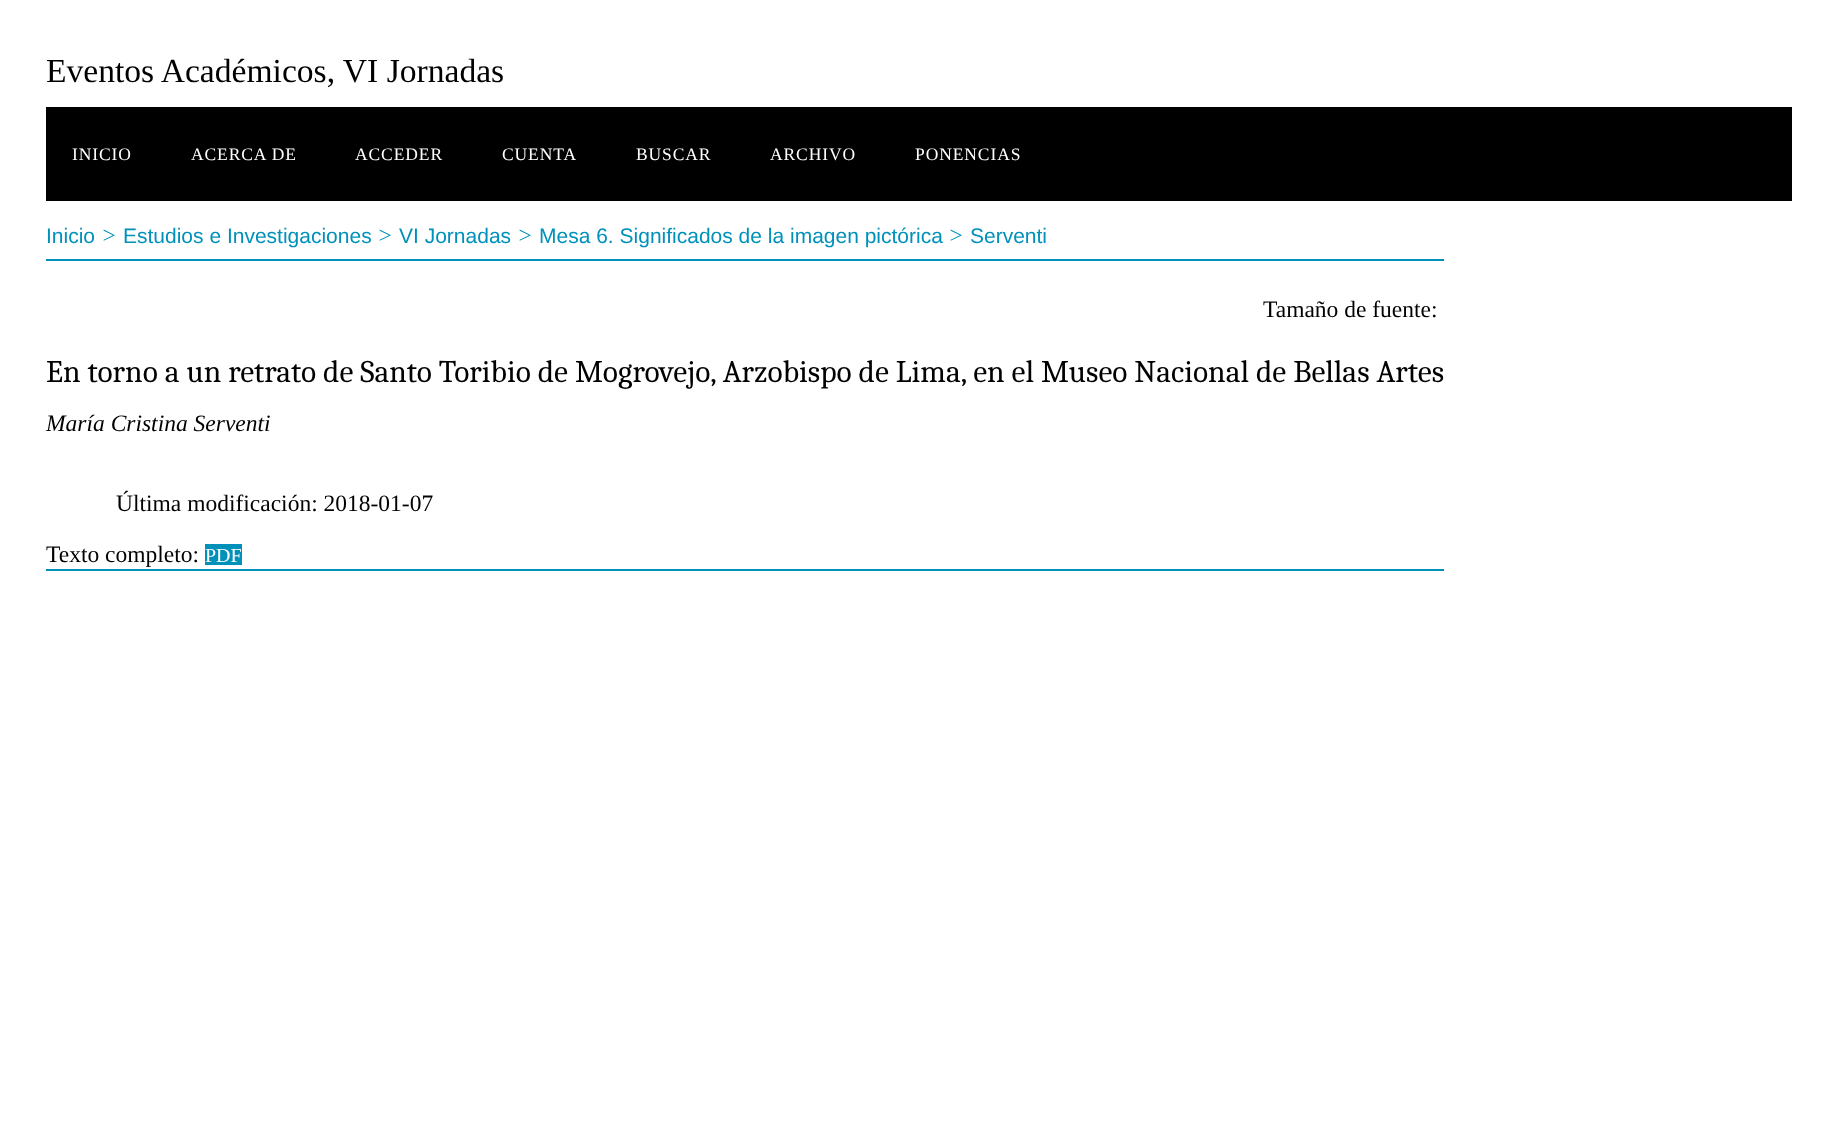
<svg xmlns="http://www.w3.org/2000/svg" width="1837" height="1129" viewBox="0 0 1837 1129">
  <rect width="100%" height="100%" fill="#ffffff"/>
  <text x="46" y="82" font-family="Liberation Serif" font-size="33.6" fill="#000000">Eventos Académicos, VI Jornadas</text>
  <rect x="46" y="107" width="1746" height="94" fill="#000000"/>
  <text x="72" y="160" font-family="Liberation Serif" font-size="17.5" letter-spacing="0.9" fill="#ffffff">INICIO</text>
  <text x="191" y="160" font-family="Liberation Serif" font-size="17.5" letter-spacing="0.9" fill="#ffffff">ACERCA DE</text>
  <text x="355" y="160" font-family="Liberation Serif" font-size="17.5" letter-spacing="0.9" fill="#ffffff">ACCEDER</text>
  <text x="502" y="160" font-family="Liberation Serif" font-size="17.5" letter-spacing="0.9" fill="#ffffff">CUENTA</text>
  <text x="636" y="160" font-family="Liberation Serif" font-size="17.5" letter-spacing="0.9" fill="#ffffff">BUSCAR</text>
  <text x="770" y="160" font-family="Liberation Serif" font-size="17.5" letter-spacing="0.9" fill="#ffffff">ARCHIVO</text>
  <text x="915" y="160" font-family="Liberation Serif" font-size="17.5" letter-spacing="0.9" fill="#ffffff">PONENCIAS</text>
  <text x="46" y="243" font-family="Liberation Sans" font-size="21" fill="#0091bb">Inicio</text>
  <text x="101" y="243" font-family="Liberation Serif" font-size="23.5" font-style="italic" fill="#0091bb">&gt;</text>
  <text x="123" y="243" font-family="Liberation Sans" font-size="21" fill="#0091bb">Estudios e Investigaciones</text>
  <text x="377" y="243" font-family="Liberation Serif" font-size="23.5" font-style="italic" fill="#0091bb">&gt;</text>
  <text x="399" y="243" font-family="Liberation Sans" font-size="21" fill="#0091bb">VI Jornadas</text>
  <text x="517" y="243" font-family="Liberation Serif" font-size="23.5" font-style="italic" fill="#0091bb">&gt;</text>
  <text x="539" y="243" font-family="Liberation Sans" font-size="21" fill="#0091bb">Mesa 6. Significados de la imagen pictórica</text>
  <text x="948" y="243" font-family="Liberation Serif" font-size="23.5" font-style="italic" fill="#0091bb">&gt;</text>
  <text x="970" y="243" font-family="Liberation Sans" font-size="21" fill="#0091bb">Serventi</text>
  <rect x="46" y="259" width="1398" height="2" fill="#0091bb"/>
  <rect x="46" y="569" width="1398" height="2" fill="#0091bb"/>
  <text x="1263" y="317" font-family="Liberation Serif" font-size="23.5" fill="#000000">Tamaño de fuente:</text>
  <text x="46" y="382" font-family="Caladea" font-size="31.5" fill="#000000">En torno a un retrato de Santo Toribio de Mogrovejo, Arzobispo de Lima, en el Museo Nacional de Bellas Artes</text>
  <text x="46" y="431" font-family="Liberation Serif" font-size="23.5" font-style="italic" fill="#000000">María Cristina Serventi</text>
  <text x="116" y="511" font-family="Liberation Serif" font-size="23.5" fill="#000000">Última modificación: 2018-01-07</text>
  <text x="46" y="562" font-family="Liberation Serif" font-size="23.5" fill="#000000">Texto completo:</text>
  <rect x="205" y="544" width="37" height="21" fill="#0091bb"/>
  <text x="205" y="562" font-family="Liberation Serif" font-size="20" fill="#ffffff">PDF</text>
</svg>
